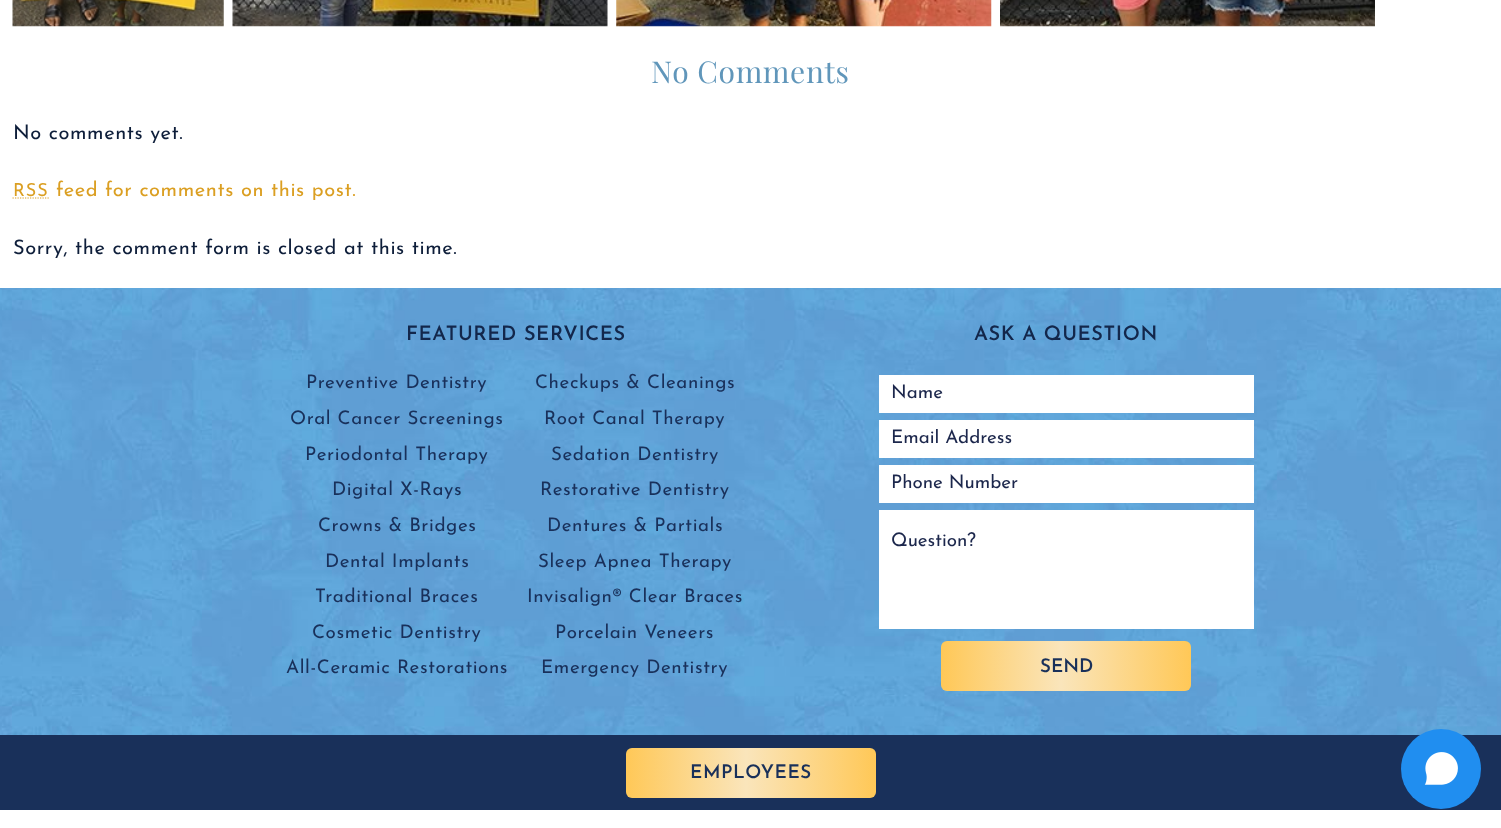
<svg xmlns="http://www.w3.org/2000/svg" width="1501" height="828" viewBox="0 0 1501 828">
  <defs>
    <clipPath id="clip1"><rect x="891" y="429" width="350" height="19"/></clipPath>
    <clipPath id="clip2"><rect x="891" y="474" width="350" height="19"/></clipPath>
    <linearGradient id="g1" gradientUnits="userSpaceOnUse" x1="941" y1="666" x2="1191" y2="666"><stop offset="0" stop-color="#ffc857"/><stop offset="0.48" stop-color="#fae5bb"/><stop offset="1" stop-color="#ffc857"/></linearGradient>
    <linearGradient id="g2" gradientUnits="userSpaceOnUse" x1="626" y1="773" x2="876" y2="773"><stop offset="0" stop-color="#ffc857"/><stop offset="0.48" stop-color="#fae5bb"/><stop offset="1" stop-color="#ffc857"/></linearGradient>
  </defs>
  <rect width="100%" height="100%" fill="#ffffff"/>
  <image x="12" y="0" width="212" height="27" href="img1.png"/>
  <image x="232" y="0" width="376" height="27" href="img2.png"/>
  <image x="616" y="0" width="376" height="27" href="img3.png"/>
  <image x="1000" y="0" width="375" height="27" href="img4.png"/>
  <text x="651" y="83" font-family="Playfair Display" font-size="30" letter-spacing="0.6" fill="#6096ba">No Comments</text>
  <text x="13" y="139" font-family="Josefin Sans" font-size="20" letter-spacing="0.6" fill="#0e1e3a">No comments yet.</text>
  <text x="13" y="196" font-family="Josefin Sans" font-size="18" letter-spacing="1" fill="#db9f22">RSS</text>
  <path d="M12.5 198H49" fill="none" stroke="#db9f22" stroke-width="1.2" stroke-dasharray="1.25 1.25"/>
  <text x="56" y="196" font-family="Josefin Sans" font-size="20" letter-spacing="0.6" fill="#db9f22">feed for comments on this post.</text>
  <text x="13" y="254" font-family="Josefin Sans" font-size="20" letter-spacing="0.6" fill="#0e1e3a">Sorry, the comment form is closed at this time.</text>
  <image x="0" y="288" width="1501" height="447" href="img5.png"/>
  <text x="406" y="340" font-family="Josefin Sans" font-size="20" font-weight="600" letter-spacing="0.6" fill="#13274b">FEATURED SERVICES</text>
  <text x="306" y="388" font-family="Josefin Sans" font-size="18.75" letter-spacing="0.6" fill="#19305a">Preventive Dentistry</text>
  <text x="535" y="388" font-family="Josefin Sans" font-size="18.75" letter-spacing="0.6" fill="#19305a">Checkups &amp; Cleanings</text>
  <text x="290" y="424" font-family="Josefin Sans" font-size="18.75" letter-spacing="0.6" fill="#19305a">Oral Cancer Screenings</text>
  <text x="544" y="424" font-family="Josefin Sans" font-size="18.75" letter-spacing="0.6" fill="#19305a">Root Canal Therapy</text>
  <text x="305" y="460" font-family="Josefin Sans" font-size="18.75" letter-spacing="0.6" fill="#19305a">Periodontal Therapy</text>
  <text x="551" y="460" font-family="Josefin Sans" font-size="18.75" letter-spacing="0.6" fill="#19305a">Sedation Dentistry</text>
  <text x="332" y="495" font-family="Josefin Sans" font-size="18.75" letter-spacing="0.6" fill="#19305a">Digital X-Rays</text>
  <text x="540" y="495" font-family="Josefin Sans" font-size="18.75" letter-spacing="0.6" fill="#19305a">Restorative Dentistry</text>
  <text x="318" y="531" font-family="Josefin Sans" font-size="18.75" letter-spacing="0.6" fill="#19305a">Crowns &amp; Bridges</text>
  <text x="547" y="531" font-family="Josefin Sans" font-size="18.75" letter-spacing="0.6" fill="#19305a">Dentures &amp; Partials</text>
  <text x="325" y="567" font-family="Josefin Sans" font-size="18.75" letter-spacing="0.6" fill="#19305a">Dental Implants</text>
  <text x="538" y="567" font-family="Josefin Sans" font-size="18.75" letter-spacing="0.6" fill="#19305a">Sleep Apnea Therapy</text>
  <text x="315" y="602" font-family="Josefin Sans" font-size="18.75" letter-spacing="0.6" fill="#19305a">Traditional Braces</text>
  <text x="527" y="602" font-family="Josefin Sans" font-size="18.75" letter-spacing="0.6" fill="#19305a">Invisalign® Clear Braces</text>
  <text x="312" y="638" font-family="Josefin Sans" font-size="18.75" letter-spacing="0.6" fill="#19305a">Cosmetic Dentistry</text>
  <text x="555" y="638" font-family="Josefin Sans" font-size="18.75" letter-spacing="0.6" fill="#19305a">Porcelain Veneers</text>
  <text x="286" y="673" font-family="Josefin Sans" font-size="18.75" letter-spacing="0.6" fill="#19305a">All-Ceramic Restorations</text>
  <text x="541" y="673" font-family="Josefin Sans" font-size="18.75" letter-spacing="0.6" fill="#19305a">Emergency Dentistry</text>
  <text x="974" y="340" font-family="Josefin Sans" font-size="20" font-weight="600" letter-spacing="0.6" fill="#13274b">ASK A QUESTION</text>
  <rect x="879" y="375" width="375" height="38" fill="#ffffff"/>
  <text x="891" y="398" font-family="Josefin Sans" font-size="18.75" fill="#1c274c">Name</text>
  <rect x="879" y="420" width="375" height="38" fill="#ffffff"/>
  <g clip-path="url(#clip1)">
    <text x="891" y="443" font-family="Josefin Sans" font-size="18.75" fill="#1c274c">Email Address</text>
  </g>
  <rect x="879" y="465" width="375" height="38" fill="#ffffff"/>
  <g clip-path="url(#clip2)">
    <text x="891" y="488" font-family="Josefin Sans" font-size="18.75" fill="#1c274c">Phone Number</text>
  </g>
  <rect x="879" y="510" width="375" height="119" fill="#ffffff"/>
  <text x="891" y="546" font-family="Josefin Sans" font-size="18.75" fill="#1c274c">Question?</text>
  <rect x="941" y="641" width="250" height="50" rx="6" fill="url(#g1)"/>
  <text x="1040" y="672" font-family="Josefin Sans" font-size="18.75" font-weight="600" fill="#19305a">SEND</text>
  <rect x="0" y="735" width="1501" height="75" fill="#19305a"/>
  <rect x="626" y="748" width="250" height="50" rx="6" fill="url(#g2)"/>
  <text x="690" y="778" font-family="Josefin Sans" font-size="18.75" font-weight="600" letter-spacing="0.6" fill="#19305a">EMPLOYEES</text>
  <circle cx="1441" cy="769" r="40" fill="#208ef0"/>
  <image x="1424" y="752" width="34" height="33" href="img6.png"/>
</svg>
